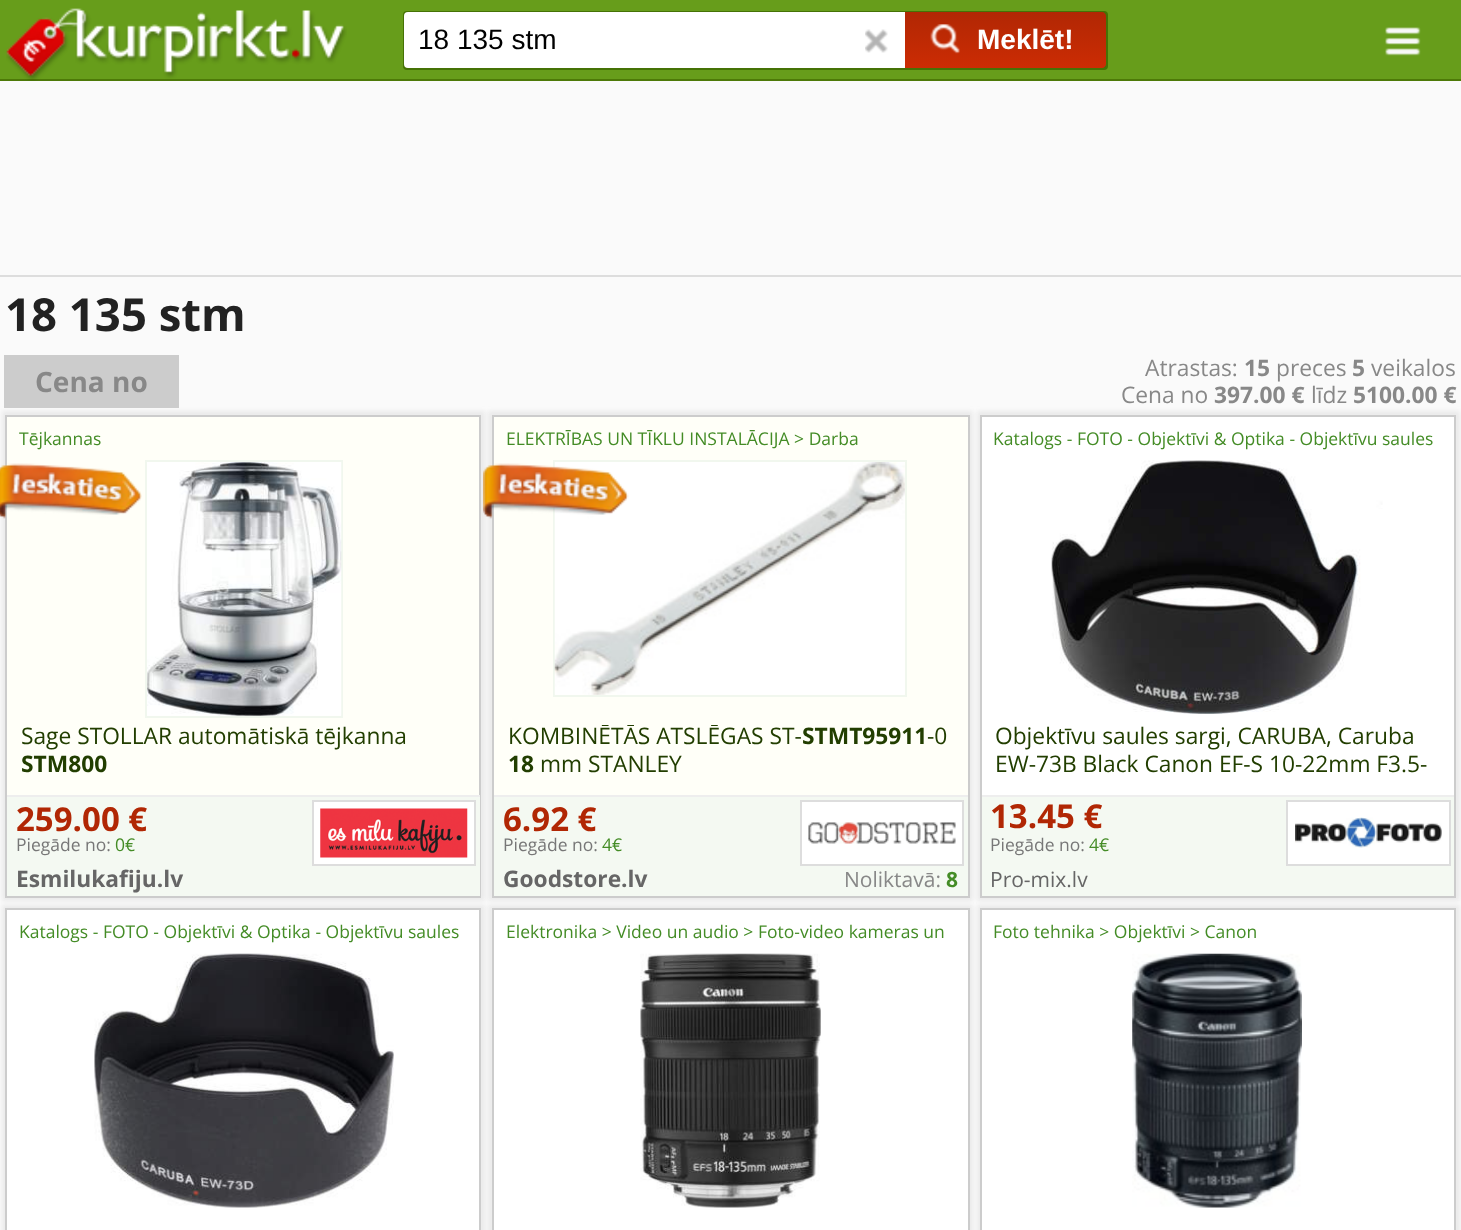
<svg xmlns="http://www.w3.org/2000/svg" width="1461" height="1230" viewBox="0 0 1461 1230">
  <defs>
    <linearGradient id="g1" gradientUnits="userSpaceOnUse" x1="1005" y1="12" x2="1005" y2="68"><stop offset="0" stop-color="#b12704"/><stop offset="1" stop-color="#cc2c04"/></linearGradient>
    <filter id="blur1" x="-50%" y="-200%" width="200%" height="500%"><feGaussianBlur stdDeviation="2"/></filter>
    <clipPath id="clip1"><rect x="508" y="725" width="451" height="52"/></clipPath>
  </defs>
  <rect width="100%" height="100%" fill="#fafafa"/>
  <rect x="0" y="0" width="1461" height="79" fill="#679d1b"/>
  <rect x="0" y="79" width="1461" height="2" fill="#4d7908"/>
  <image x="6" y="8" width="341" height="73" href="img1.png"/>
  <rect x="404" y="12" width="703" height="57" rx="3" fill="#457205" stroke="#457205" stroke-width="2"/>
  <rect x="404" y="12" width="508" height="56" rx="4" fill="#ffffff"/>
  <text x="418" y="49" font-family="Liberation Sans" font-size="28" fill="#000000">18 135 stm</text>
  <image x="865" y="29" width="23" height="24" href="img2.png"/>
  <path d="M905 12H1102C1104 12 1106 14 1106 16V64C1106 66 1104 68 1102 68H905Z" fill="url(#g1)"/>
  <image x="930" y="24" width="30" height="30" href="img3.png"/>
  <text x="977" y="49" font-family="Liberation Sans" font-size="28" font-weight="bold" fill="#ffffff">Meklēt!</text>
  <image x="1385" y="27" width="36" height="29" href="img4.png"/>
  <rect x="0" y="275" width="1461" height="2" fill="#dddddd"/>
  <text x="5" y="331" font-family="Open Sans" font-size="45.5" font-weight="bold" fill="#222222">18 135 stm</text>
  <rect x="4" y="355" width="175" height="53" fill="#cccccc"/>
  <text x="35" y="392" font-family="Open Sans" font-size="28" font-weight="bold" fill="#888888">Cena no</text>
  <text x="1145" y="376" font-family="Open Sans" font-size="22.75" fill="#888888">Atrastas:</text>
  <text x="1244" y="376" font-family="Open Sans" font-size="22.75" font-weight="bold" fill="#888888">15</text>
  <text x="1276" y="376" font-family="Open Sans" font-size="22.75" fill="#888888">preces</text>
  <text x="1352" y="376" font-family="Open Sans" font-size="22.75" font-weight="bold" fill="#888888">5</text>
  <text x="1371" y="376" font-family="Open Sans" font-size="22.75" fill="#888888">veikalos</text>
  <text x="1121" y="403" font-family="Open Sans" font-size="22.75" fill="#888888">Cena no</text>
  <text x="1214" y="403" font-family="Open Sans" font-size="22.75" font-weight="bold" fill="#888888">397.00 €</text>
  <text x="1311" y="403" font-family="Open Sans" font-size="22.75" fill="#888888">līdz</text>
  <text x="1353" y="403" font-family="Open Sans" font-size="22.75" font-weight="bold" fill="#888888">5100.00 €</text>
  <rect x="2" y="411" width="483" height="490" fill="#c8c8c8" fill-opacity="0.3" filter="url(#blur1)"/>
  <rect x="7" y="417" width="472" height="378" fill="#fffff8"/>
  <rect x="6" y="416" width="474" height="481" fill="none" stroke="#cccccc" stroke-width="2"/>
  <text x="19" y="445" font-family="Open Sans" font-size="17.5" fill="#448c26">Tējkannas</text>
  <rect x="146" y="461" width="196" height="256" fill="none" stroke="#f1f7ee" stroke-width="2"/>
  <image x="147" y="462" width="195" height="254" href="img5.png"/>
  <text x="21" y="744" font-family="Open Sans" font-size="22.75" fill="#223e00">Sage STOLLAR automātiskā tējkanna</text>
  <text x="21" y="772" font-family="Open Sans" font-size="22.75" font-weight="bold" fill="#223e00">STM800</text>
  <rect x="7" y="797" width="473" height="99" fill="#f4f9f2"/>
  <text x="16" y="831" font-family="Open Sans" font-size="33" font-weight="bold" fill="#b12704">259.00 €</text>
  <rect x="7" y="795" width="473" height="2" fill="#eeeeee"/>
  <text x="16" y="851" font-family="Open Sans" font-size="17.5" fill="#777777">Piegāde no:</text>
  <text x="115" y="851" font-family="Open Sans" font-size="17.5" fill="#448c26">0€</text>
  <rect x="313" y="801" width="162" height="64" fill="#ffffff" stroke="#dddddd" stroke-width="2"/>
  <image x="320" y="808" width="148" height="50" href="img6.png"/>
  <text x="16" y="887" font-family="Open Sans" font-size="22.75" font-weight="bold" fill="#666666">Esmilukafiju.lv</text>
  <image x="0" y="463" width="142" height="56" href="img7.png"/>
  <rect x="488" y="411" width="485" height="490" fill="#c8c8c8" fill-opacity="0.3" filter="url(#blur1)"/>
  <rect x="494" y="417" width="474" height="378" fill="#fffff8"/>
  <rect x="493" y="416" width="476" height="481" fill="none" stroke="#cccccc" stroke-width="2"/>
  <text x="506" y="445" font-family="Open Sans" font-size="17.5" fill="#448c26">ELEKTRĪBAS UN TĪKLU INSTALĀCIJA &gt; Darba</text>
  <rect x="554" y="461" width="352" height="235" fill="none" stroke="#f1f7ee" stroke-width="2"/>
  <image x="554" y="462" width="351" height="233" href="img8.png"/>
  <g clip-path="url(#clip1)">
    <text x="508" y="744" font-family="Open Sans" font-size="22.75" fill="#223e00">KOMBINĒTĀS ATSLĒGAS ST-</text>
  </g>
  <text x="802" y="744" font-family="Open Sans" font-size="22.75" font-weight="bold" fill="#223e00">STMT95911</text>
  <text x="927" y="744" font-family="Open Sans" font-size="22.75" fill="#223e00">-0</text>
  <text x="508" y="772" font-family="Open Sans" font-size="22.75" font-weight="bold" fill="#223e00">18</text>
  <text x="540" y="772" font-family="Open Sans" font-size="22.75" fill="#223e00">mm STANLEY</text>
  <rect x="494" y="797" width="474" height="99" fill="#f4f9f2"/>
  <text x="503" y="831" font-family="Open Sans" font-size="33" font-weight="bold" fill="#b12704">6.92 €</text>
  <rect x="494" y="795" width="474" height="2" fill="#eeeeee"/>
  <text x="503" y="851" font-family="Open Sans" font-size="17.5" fill="#777777">Piegāde no:</text>
  <text x="602" y="851" font-family="Open Sans" font-size="17.5" fill="#448c26">4€</text>
  <rect x="801" y="801" width="162" height="64" fill="#ffffff" stroke="#dddddd" stroke-width="2"/>
  <image x="808" y="822" width="148" height="22" href="img9.png"/>
  <text x="503" y="887" font-family="Open Sans" font-size="22.75" font-weight="bold" fill="#666666">Goodstore.lv</text>
  <text x="844" y="887" font-family="Open Sans" font-size="21" fill="#888888">Noliktavā:</text>
  <text x="946" y="887" font-family="Open Sans" font-size="21" font-weight="bold" fill="#448c26">8</text>
  <image x="483" y="463" width="146" height="56" href="img10.png"/>
  <rect x="977" y="411" width="483" height="490" fill="#c8c8c8" fill-opacity="0.3" filter="url(#blur1)"/>
  <rect x="982" y="417" width="472" height="378" fill="#ffffff"/>
  <rect x="981" y="416" width="474" height="481" fill="none" stroke="#cccccc" stroke-width="2"/>
  <text x="993" y="445" font-family="Open Sans" font-size="17.5" fill="#448c26">Katalogs - FOTO - Objektīvi &amp; Optika - Objektīvu saules</text>
  <image x="1051" y="460" width="332" height="254" href="img11.png"/>
  <text x="995" y="744" font-family="Open Sans" font-size="22.75" fill="#223e00">Objektīvu saules sargi, CARUBA, Caruba</text>
  <text x="995" y="772" font-family="Open Sans" font-size="22.75" fill="#223e00">EW-73B Black Canon EF-S 10-22mm F3.5-</text>
  <rect x="982" y="797" width="472" height="99" fill="#f4f9f2"/>
  <text x="990" y="828" font-family="Open Sans" font-size="33" font-weight="bold" fill="#b12704">13.45 €</text>
  <rect x="982" y="795" width="472" height="2" fill="#eeeeee"/>
  <text x="990" y="851" font-family="Open Sans" font-size="17.5" fill="#777777">Piegāde no:</text>
  <text x="1089" y="851" font-family="Open Sans" font-size="17.5" fill="#448c26">4€</text>
  <rect x="1287" y="801" width="163" height="64" fill="#ffffff" stroke="#dddddd" stroke-width="2"/>
  <image x="1295" y="817" width="147" height="31" href="img12.png"/>
  <text x="990" y="887" font-family="Open Sans" font-size="21" fill="#666666">Pro-mix.lv</text>
  <rect x="2" y="905" width="483" height="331" fill="#c8c8c8" fill-opacity="0.3" filter="url(#blur1)"/>
  <rect x="6" y="909" width="474" height="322" fill="#ffffff" stroke="#cccccc" stroke-width="2"/>
  <text x="19" y="938" font-family="Open Sans" font-size="17.5" fill="#448c26">Katalogs - FOTO - Objektīvi &amp; Optika - Objektīvu saules</text>
  <image x="94" y="953" width="300" height="255" href="img13.png"/>
  <rect x="488" y="905" width="485" height="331" fill="#c8c8c8" fill-opacity="0.3" filter="url(#blur1)"/>
  <rect x="493" y="909" width="476" height="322" fill="#ffffff" stroke="#cccccc" stroke-width="2"/>
  <text x="506" y="938" font-family="Open Sans" font-size="17.5" fill="#448c26">Elektronika &gt; Video un audio &gt; Foto-video kameras un</text>
  <image x="640" y="953" width="181" height="255" href="img14.png"/>
  <rect x="977" y="905" width="483" height="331" fill="#c8c8c8" fill-opacity="0.3" filter="url(#blur1)"/>
  <rect x="981" y="909" width="474" height="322" fill="#ffffff" stroke="#cccccc" stroke-width="2"/>
  <text x="993" y="938" font-family="Open Sans" font-size="17.5" fill="#448c26">Foto tehnika &gt; Objektīvi &gt; Canon</text>
  <image x="1132" y="953" width="170" height="255" href="img15.png"/>
</svg>
